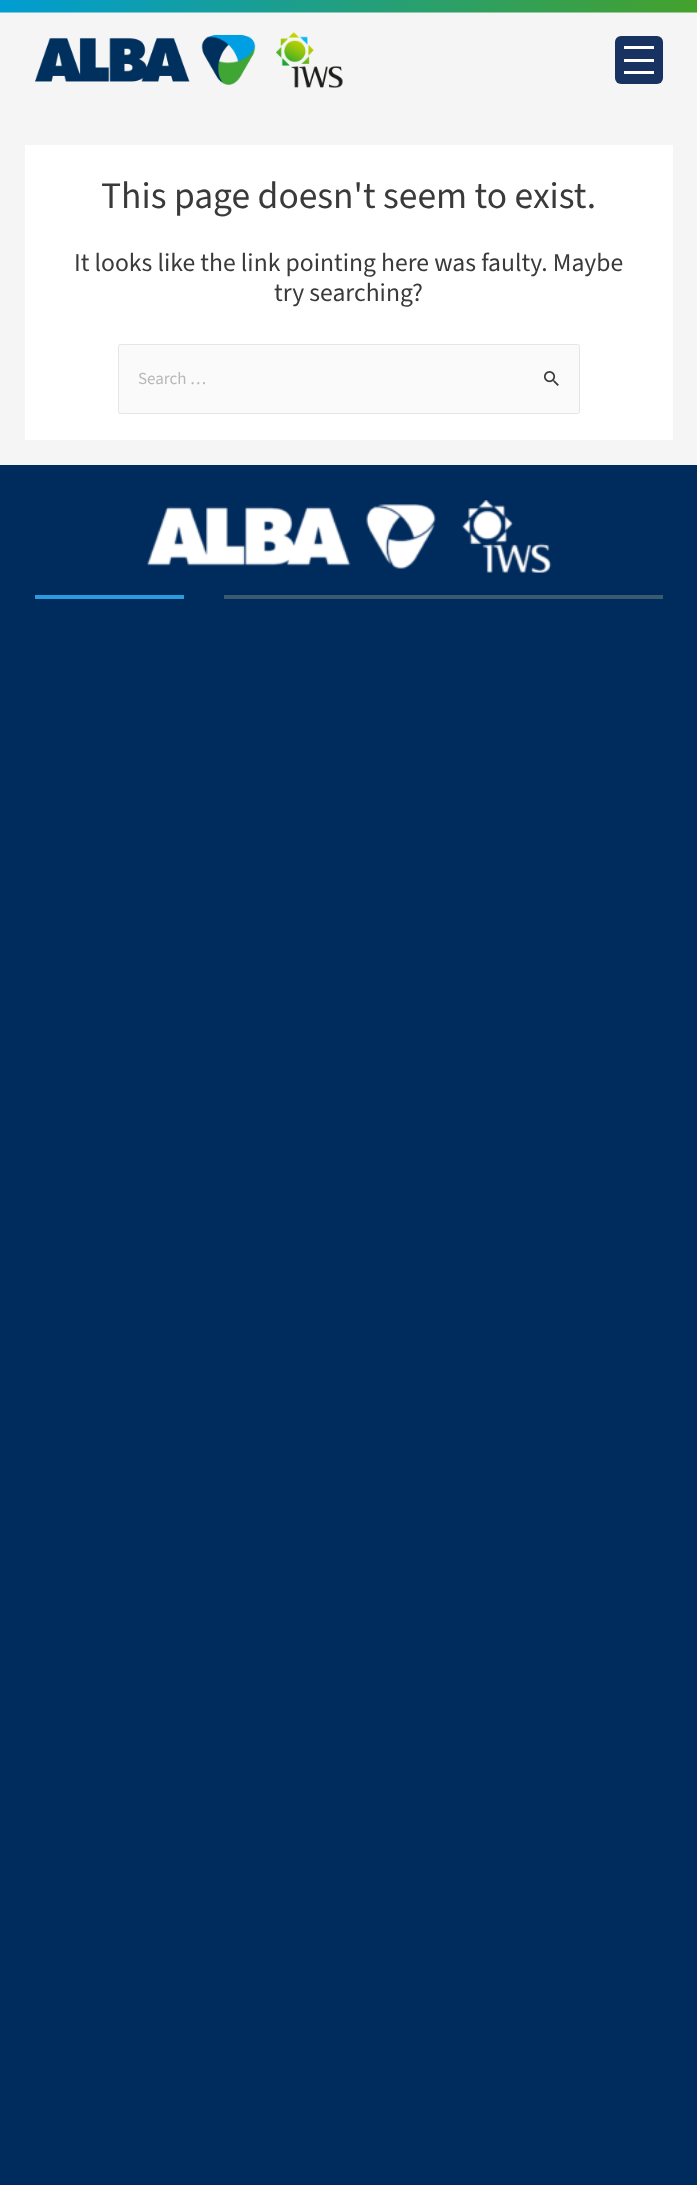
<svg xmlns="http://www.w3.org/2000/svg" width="697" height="2185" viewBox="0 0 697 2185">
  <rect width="100%" height="100%" fill="#f5f5f5"/>
  <image x="0" y="0" width="697" height="13" href="img1.png"/>
  <image x="35" y="32" width="308" height="56" href="img2.png"/>
  <rect x="615" y="36" width="48" height="48" rx="6" fill="#183362"/>
  <rect x="624" y="59" width="30" height="3" fill="#ffffff"/>
  <rect x="624" y="46" width="30" height="3" fill="#ffffff"/>
  <rect x="624" y="71" width="30" height="3" fill="#ffffff"/>
  <rect x="25" y="145" width="648" height="295" fill="#ffffff"/>
  <text x="101" y="208" font-family="'Source Sans 3'" font-size="37.5" fill="#3a3a3a">This page doesn't seem to exist.</text>
  <text x="74" y="271" font-family="'Source Sans 3'" font-size="25.65" fill="#3a3a3a">It looks like the link pointing here was faulty. Maybe</text>
  <text x="274" y="301" font-family="'Source Sans 3'" font-size="25.65" fill="#3a3a3a">try searching?</text>
  <rect x="118.5" y="344.5" width="461" height="69" rx="2" fill="#fafafa" stroke="#e5e5e5"/>
  <text x="138" y="384" font-family="'Source Sans 3'" font-size="17" fill="#b8b8b8">Search …</text>
  <image x="544" y="371" width="15" height="15" href="img3.png"/>
  <rect x="0" y="465" width="697" height="1720" fill="#002b5d"/>
  <image x="147" y="500" width="405" height="73" href="img4.png"/>
  <rect x="35" y="595" width="149" height="4" fill="#299bde"/>
  <rect x="224" y="595" width="439" height="4" fill="#3a5b6f"/>
</svg>
